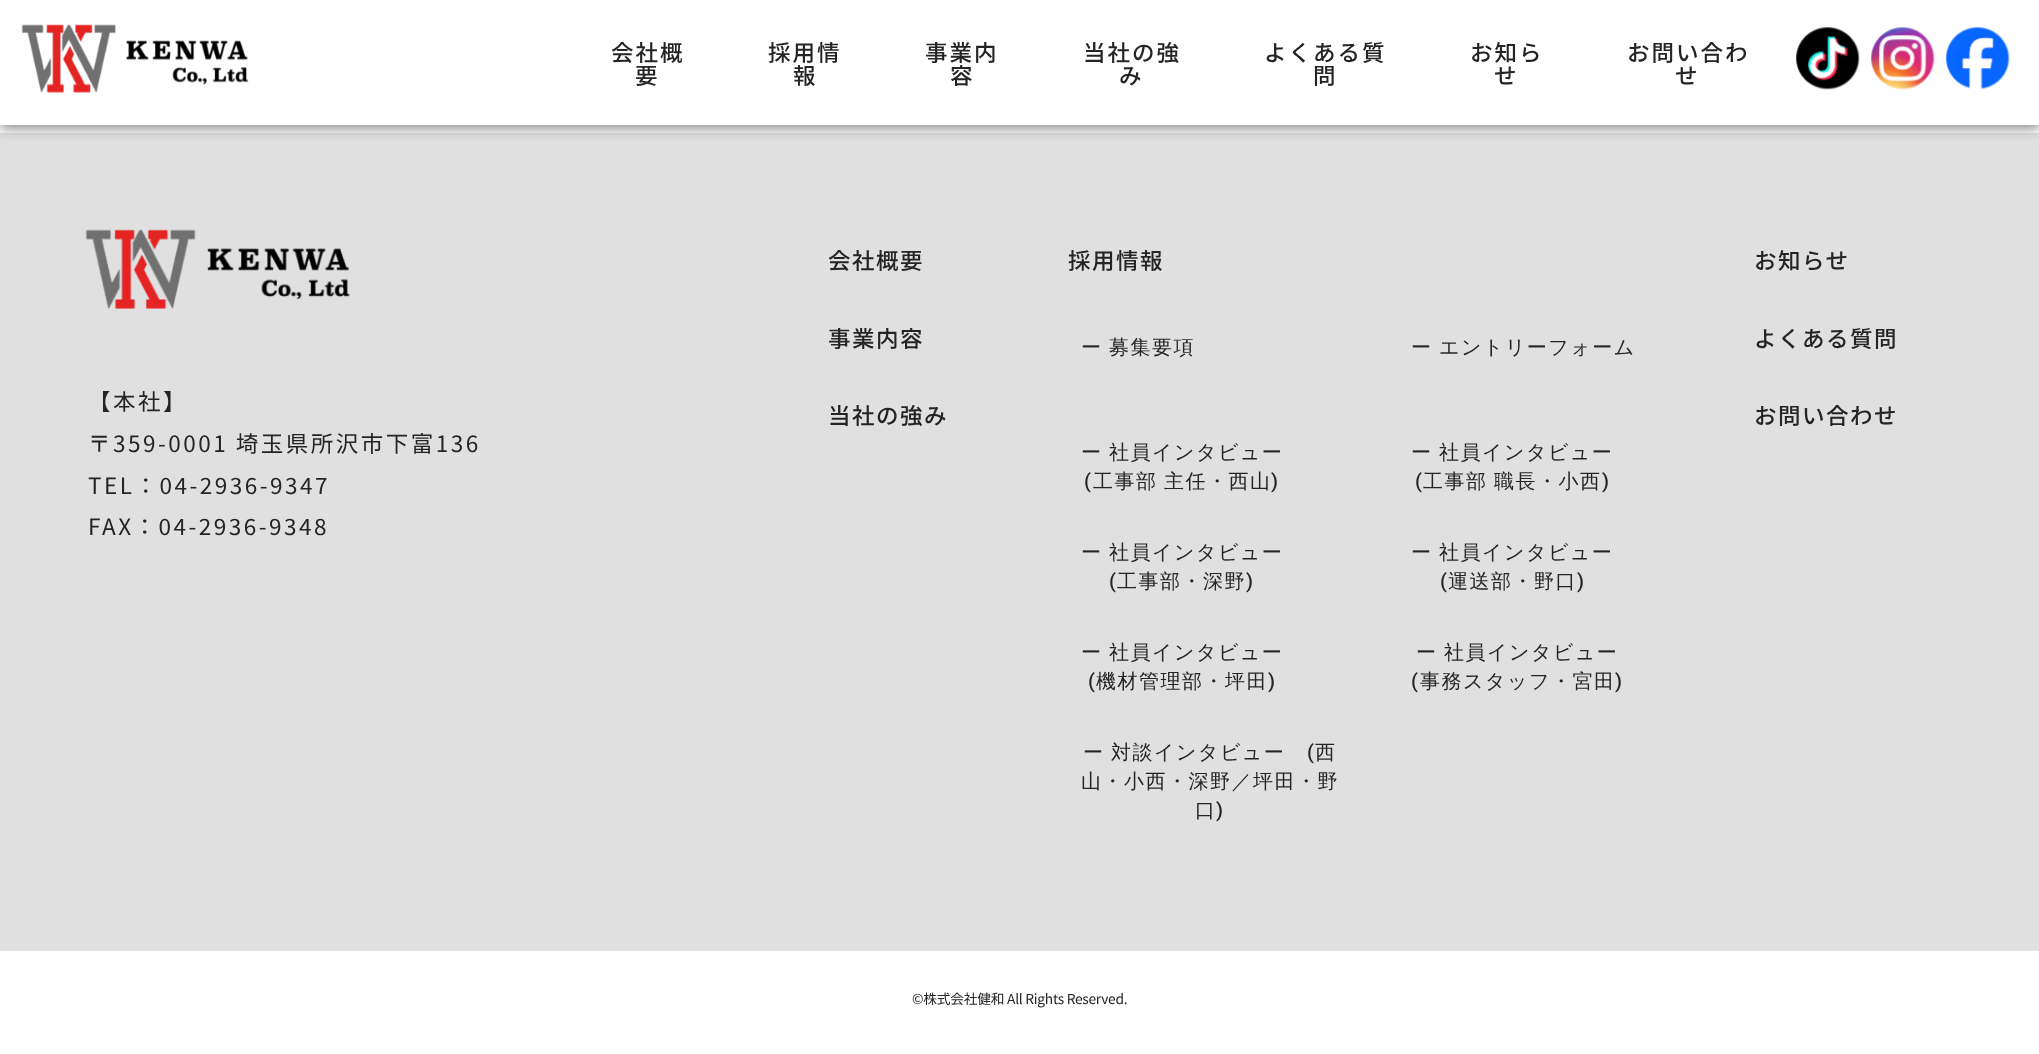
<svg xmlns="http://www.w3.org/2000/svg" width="2039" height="1054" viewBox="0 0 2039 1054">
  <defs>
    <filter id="blur1" x="-50%" y="-200%" width="200%" height="500%"><feGaussianBlur stdDeviation="6"/></filter>
  </defs>
  <rect width="100%" height="100%" fill="#ffffff"/>
  <rect x="0" y="133" width="2039" height="818" fill="#e0e0e0"/>
  <rect x="0" y="4" width="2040" height="125" fill="#393939" fill-opacity="0.57" filter="url(#blur1)"/>
  <rect x="0" y="0" width="2039" height="125" fill="#ffffff"/>
  <image x="21" y="24" width="228" height="69" href="img1.png"/>
  <text x="611" y="61" font-family="Noto Sans JP" font-size="22.5" font-weight="500" letter-spacing="2" fill="#242424">会社概</text>
  <text x="635" y="84" font-family="Noto Sans JP" font-size="22.5" font-weight="500" letter-spacing="2" fill="#242424">要</text>
  <text x="768" y="61" font-family="Noto Sans JP" font-size="22.5" font-weight="500" letter-spacing="2" fill="#242424">採用情</text>
  <text x="793" y="84" font-family="Noto Sans JP" font-size="22.5" font-weight="500" letter-spacing="2" fill="#242424">報</text>
  <text x="925" y="61" font-family="Noto Sans JP" font-size="22.5" font-weight="500" letter-spacing="2" fill="#242424">事業内</text>
  <text x="950" y="84" font-family="Noto Sans JP" font-size="22.5" font-weight="500" letter-spacing="2" fill="#242424">容</text>
  <text x="1083" y="61" font-family="Noto Sans JP" font-size="22.5" font-weight="500" letter-spacing="2" fill="#242424">当社の強</text>
  <text x="1119" y="84" font-family="Noto Sans JP" font-size="22.5" font-weight="500" letter-spacing="2" fill="#242424">み</text>
  <text x="1264" y="61" font-family="Noto Sans JP" font-size="22.5" font-weight="500" letter-spacing="2" fill="#242424">よくある質</text>
  <text x="1313" y="84" font-family="Noto Sans JP" font-size="22.5" font-weight="500" letter-spacing="2" fill="#242424">問</text>
  <text x="1470" y="61" font-family="Noto Sans JP" font-size="22.5" font-weight="500" letter-spacing="2" fill="#242424">お知ら</text>
  <text x="1494" y="84" font-family="Noto Sans JP" font-size="22.5" font-weight="500" letter-spacing="2" fill="#242424">せ</text>
  <text x="1627" y="61" font-family="Noto Sans JP" font-size="22.5" font-weight="500" letter-spacing="2" fill="#242424">お問い合わ</text>
  <text x="1675" y="84" font-family="Noto Sans JP" font-size="22.5" font-weight="500" letter-spacing="2" fill="#242424">せ</text>
  <image x="1796" y="27" width="64" height="63" href="img2.png"/>
  <image x="1871" y="27" width="64" height="63" href="img3.png"/>
  <image x="1946" y="27" width="64" height="63" href="img4.png"/>
  <image x="85" y="229" width="265" height="80" href="img5.png"/>
  <text x="88" y="410" font-family="Noto Sans JP" font-size="22.5" letter-spacing="2.5" fill="#242424">【本社】</text>
  <text x="88" y="452" font-family="Noto Sans JP" font-size="22.5" letter-spacing="2.5" fill="#242424">〒359-0001 埼玉県所沢市下富136</text>
  <text x="88" y="494" font-family="Noto Sans JP" font-size="22.5" letter-spacing="2.5" fill="#242424">TEL：04-2936-9347</text>
  <text x="88" y="535" font-family="Noto Sans JP" font-size="22.5" letter-spacing="2.5" fill="#242424">FAX：04-2936-9348</text>
  <text x="828" y="269" font-family="Noto Sans JP" font-size="22.5" font-weight="500" letter-spacing="1.5" fill="#242424">会社概要</text>
  <text x="828" y="347" font-family="Noto Sans JP" font-size="22.5" font-weight="500" letter-spacing="1.5" fill="#242424">事業内容</text>
  <text x="828" y="424" font-family="Noto Sans JP" font-size="22.5" font-weight="500" letter-spacing="1.5" fill="#242424">当社の強み</text>
  <text x="1068" y="269" font-family="Noto Sans JP" font-size="22.5" font-weight="500" letter-spacing="1.5" fill="#242424">採用情報</text>
  <text x="1081" y="354" word-spacing="-1" font-family="WenQuanYi Zen Hei" font-size="20" font-weight="500" letter-spacing="1.5" fill="#242424">ー 募集要項</text>
  <text x="1411" y="354" word-spacing="-1" font-family="WenQuanYi Zen Hei" font-size="20" font-weight="500" letter-spacing="1.5" fill="#242424">ー エントリーフォーム</text>
  <text x="1081" y="459" word-spacing="-1" font-family="WenQuanYi Zen Hei" font-size="20" font-weight="500" letter-spacing="1.5" fill="#242424">ー 社員インタビュー</text>
  <text x="1084" y="488" font-family="Roboto" font-size="20" font-weight="500" letter-spacing="1.5" fill="#242424">(</text>
  <text x="1093" y="488" word-spacing="-1" font-family="WenQuanYi Zen Hei" font-size="20" font-weight="500" letter-spacing="1.5" fill="#242424">工事部 主任・西山</text>
  <text x="1271" y="488" font-family="Roboto" font-size="20" font-weight="500" letter-spacing="1.5" fill="#242424">)</text>
  <text x="1411" y="459" word-spacing="-1" font-family="WenQuanYi Zen Hei" font-size="20" font-weight="500" letter-spacing="1.5" fill="#242424">ー 社員インタビュー</text>
  <text x="1415" y="488" font-family="Roboto" font-size="20" font-weight="500" letter-spacing="1.5" fill="#242424">(</text>
  <text x="1423" y="488" word-spacing="-1" font-family="WenQuanYi Zen Hei" font-size="20" font-weight="500" letter-spacing="1.5" fill="#242424">工事部 職長・小西</text>
  <text x="1602" y="488" font-family="Roboto" font-size="20" font-weight="500" letter-spacing="1.5" fill="#242424">)</text>
  <text x="1081" y="559" word-spacing="-1" font-family="WenQuanYi Zen Hei" font-size="20" font-weight="500" letter-spacing="1.5" fill="#242424">ー 社員インタビュー</text>
  <text x="1109" y="588" font-family="Roboto" font-size="20" font-weight="500" letter-spacing="1.5" fill="#242424">(</text>
  <text x="1117" y="588" font-family="WenQuanYi Zen Hei" font-size="20" font-weight="500" letter-spacing="1.5" fill="#242424">工事部・深野</text>
  <text x="1246" y="588" font-family="Roboto" font-size="20" font-weight="500" letter-spacing="1.5" fill="#242424">)</text>
  <text x="1411" y="559" word-spacing="-1" font-family="WenQuanYi Zen Hei" font-size="20" font-weight="500" letter-spacing="1.5" fill="#242424">ー 社員インタビュー</text>
  <text x="1440" y="588" font-family="Roboto" font-size="20" font-weight="500" letter-spacing="1.5" fill="#242424">(</text>
  <text x="1448" y="588" font-family="WenQuanYi Zen Hei" font-size="20" font-weight="500" letter-spacing="1.5" fill="#242424">運送部・野口</text>
  <text x="1577" y="588" font-family="Roboto" font-size="20" font-weight="500" letter-spacing="1.5" fill="#242424">)</text>
  <text x="1081" y="659" word-spacing="-1" font-family="WenQuanYi Zen Hei" font-size="20" font-weight="500" letter-spacing="1.5" fill="#242424">ー 社員インタビュー</text>
  <text x="1088" y="688" font-family="Roboto" font-size="20" font-weight="500" letter-spacing="1.5" fill="#242424">(</text>
  <text x="1096" y="688" font-family="WenQuanYi Zen Hei" font-size="20" font-weight="500" letter-spacing="1.5" fill="#242424">機材管理部・坪田</text>
  <text x="1268" y="688" font-family="Roboto" font-size="20" font-weight="500" letter-spacing="1.5" fill="#242424">)</text>
  <text x="1416" y="659" word-spacing="-1" font-family="WenQuanYi Zen Hei" font-size="20" font-weight="500" letter-spacing="1.5" fill="#242424">ー 社員インタビュー</text>
  <text x="1411" y="688" font-family="Roboto" font-size="20" font-weight="500" letter-spacing="1.5" fill="#242424">(</text>
  <text x="1420" y="688" font-family="WenQuanYi Zen Hei" font-size="20" font-weight="500" letter-spacing="1.5" fill="#242424">事務スタッフ・宮田</text>
  <text x="1615" y="688" font-family="Roboto" font-size="20" font-weight="500" letter-spacing="1.5" fill="#242424">)</text>
  <text x="1083" y="759" word-spacing="-1" font-family="WenQuanYi Zen Hei" font-size="20" font-weight="500" letter-spacing="1.5" fill="#242424">ー 対談インタビュー</text>
  <text x="1307" y="759" font-family="Roboto" font-size="20" font-weight="500" letter-spacing="1.5" fill="#242424">(</text>
  <text x="1315" y="759" font-family="WenQuanYi Zen Hei" font-size="20" font-weight="500" letter-spacing="1.5" fill="#242424">西</text>
  <text x="1081" y="788" font-family="WenQuanYi Zen Hei" font-size="20" font-weight="500" letter-spacing="1.5" fill="#242424">山・小西・深野／坪田・野</text>
  <text x="1195" y="817" font-family="WenQuanYi Zen Hei" font-size="20" font-weight="500" letter-spacing="1.5" fill="#242424">口</text>
  <text x="1216" y="817" font-family="Roboto" font-size="20" font-weight="500" letter-spacing="1.5" fill="#242424">)</text>
  <text x="1754" y="269" font-family="Noto Sans JP" font-size="22.5" font-weight="500" letter-spacing="1.5" fill="#242424">お知らせ</text>
  <text x="1754" y="347" font-family="Noto Sans JP" font-size="22.5" font-weight="500" letter-spacing="1.5" fill="#242424">よくある質問</text>
  <text x="1754" y="424" font-family="Noto Sans JP" font-size="22.5" font-weight="500" letter-spacing="1.5" fill="#242424">お問い合わせ</text>
  <text x="912" y="1004" font-family="Noto Sans JP" font-size="13.75" letter-spacing="-0.25" fill="#242424">©株式会社健和 All Rights Reserved.</text>
</svg>
